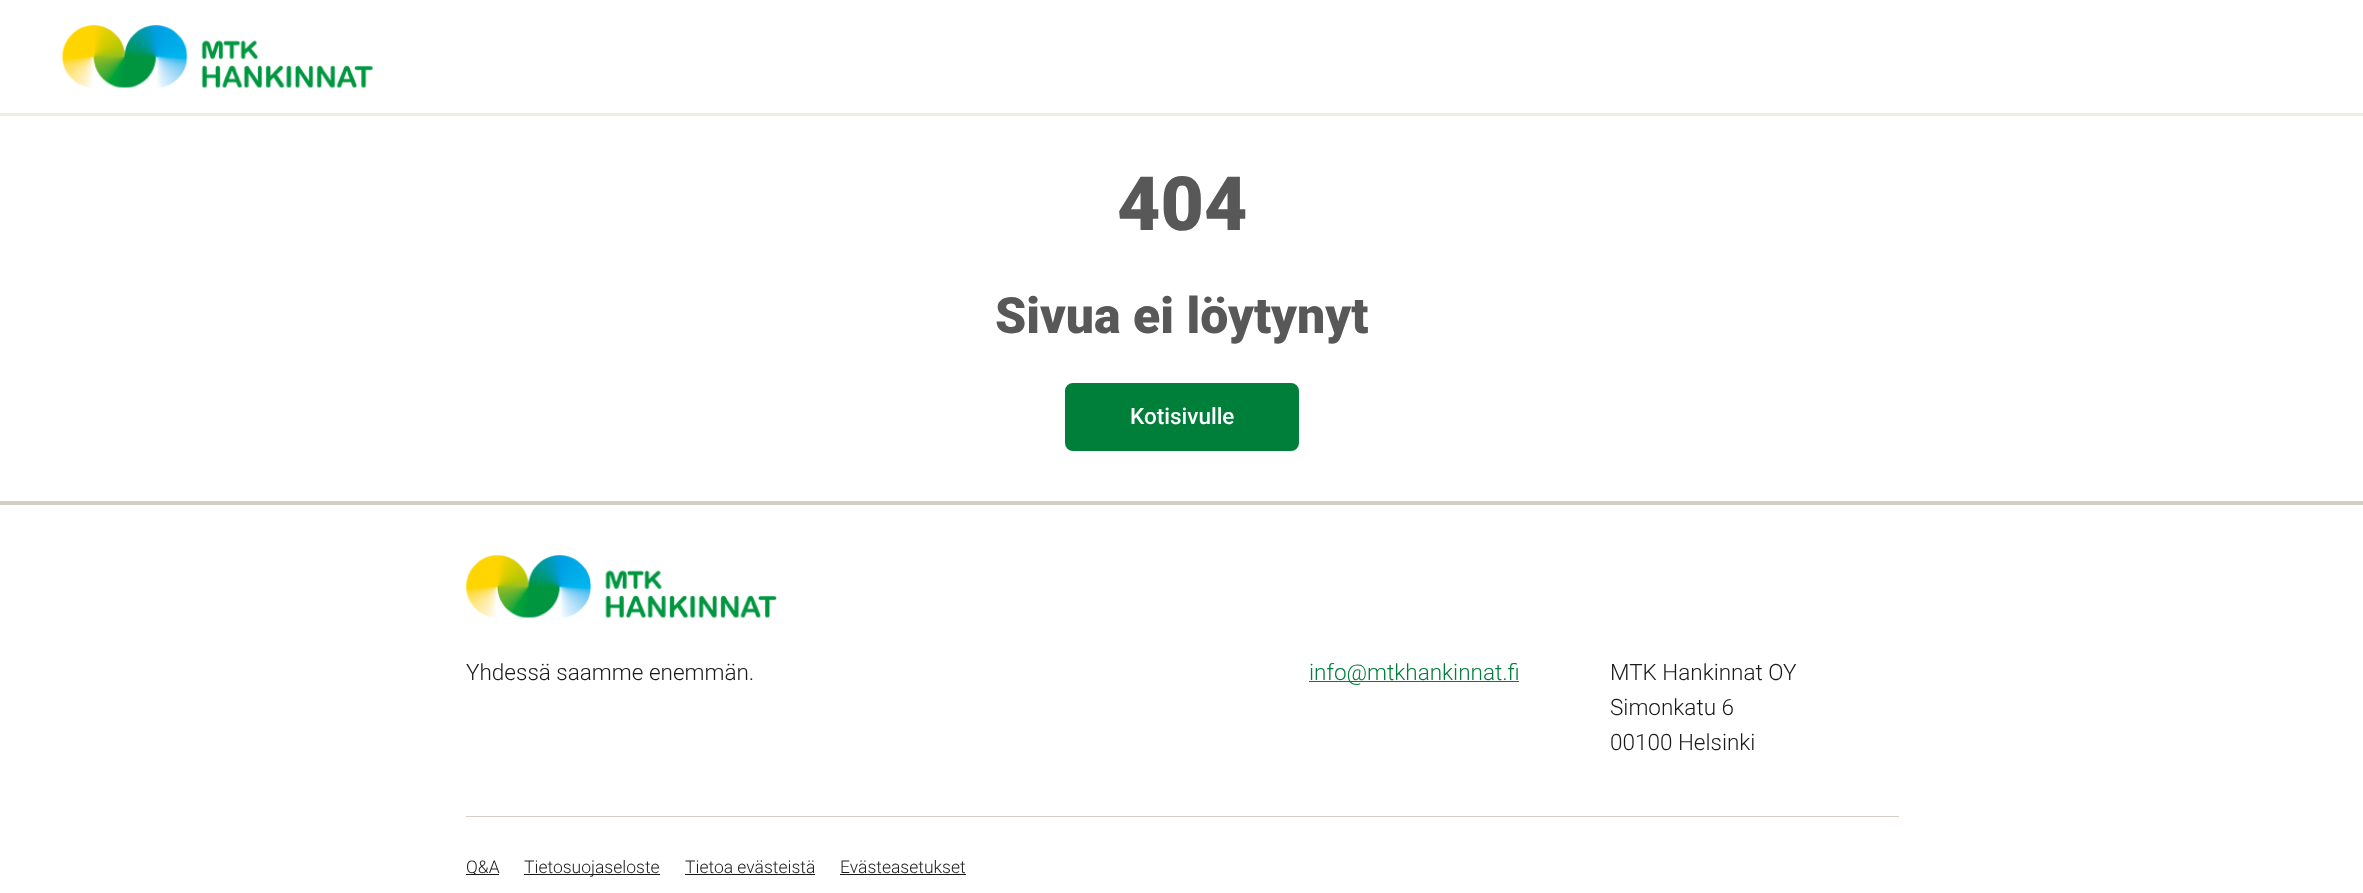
<svg xmlns="http://www.w3.org/2000/svg" width="2363" height="893" viewBox="0 0 2363 893">
  <rect width="100%" height="100%" fill="#ffffff"/>
  <rect x="0" y="113" width="2363" height="3" fill="#edece7"/>
  <image x="62" y="25" width="311" height="63" href="img1.png"/>
  <text x="1117" y="230" font-family="Roboto" font-size="75" font-weight="900" fill="#585858">404</text>
  <text x="995" y="333" font-family="Roboto" font-size="50" font-weight="900" fill="#585858">Sivua ei löytynyt</text>
  <rect x="1066.5" y="384.5" width="231" height="65" rx="6.5" fill="#007f3b" stroke="#007f3b" stroke-width="3"/>
  <text x="1130" y="424" font-family="Roboto" font-size="22.5" font-weight="500" fill="#ffffff">Kotisivulle</text>
  <rect x="0" y="501" width="2363" height="4" fill="#d5cec4"/>
  <image x="466" y="555" width="311" height="63" href="img2.png"/>
  <text x="466" y="680" font-family="Roboto" font-size="22.5" font-weight="300" fill="#1a1a1a">Yhdessä saamme enemmän.</text>
  <rect x="1309" y="681" width="210" height="1" fill="#007f3b"/>
  <text x="1309" y="680" font-family="Roboto" font-size="22.5" font-weight="300" fill="#007f3b">info@mtkhankinnat.fi</text>
  <text x="1610" y="680" font-family="Roboto" font-size="22.5" font-weight="300" fill="#1a1a1a">MTK Hankinnat OY</text>
  <text x="1610" y="715" font-family="Roboto" font-size="22.5" font-weight="300" fill="#1a1a1a">Simonkatu 6</text>
  <text x="1610" y="750" font-family="Roboto" font-size="22.5" font-weight="300" fill="#1a1a1a">00100 Helsinki</text>
  <rect x="466" y="816" width="1433" height="1" fill="#d5cec4"/>
  <rect x="466" y="874" width="33" height="1" fill="#1a1a1a"/>
  <text x="466" y="873" font-family="Roboto" font-size="17.5" font-weight="300" fill="#1a1a1a">Q&amp;A</text>
  <rect x="524" y="874" width="136" height="1" fill="#1a1a1a"/>
  <text x="524" y="873" font-family="Roboto" font-size="17.5" font-weight="300" fill="#1a1a1a">Tietosuojaseloste</text>
  <text x="685" y="873" font-family="Roboto" font-size="17.5" font-weight="300" fill="#1a1a1a">Tietoa evästeistä</text>
  <rect x="685" y="874" width="130" height="1" fill="#1a1a1a"/>
  <text x="840" y="873" font-family="Roboto" font-size="17.5" font-weight="300" fill="#1a1a1a">Evästeasetukset</text>
  <rect x="840" y="874" width="126" height="1" fill="#1a1a1a"/>
</svg>
